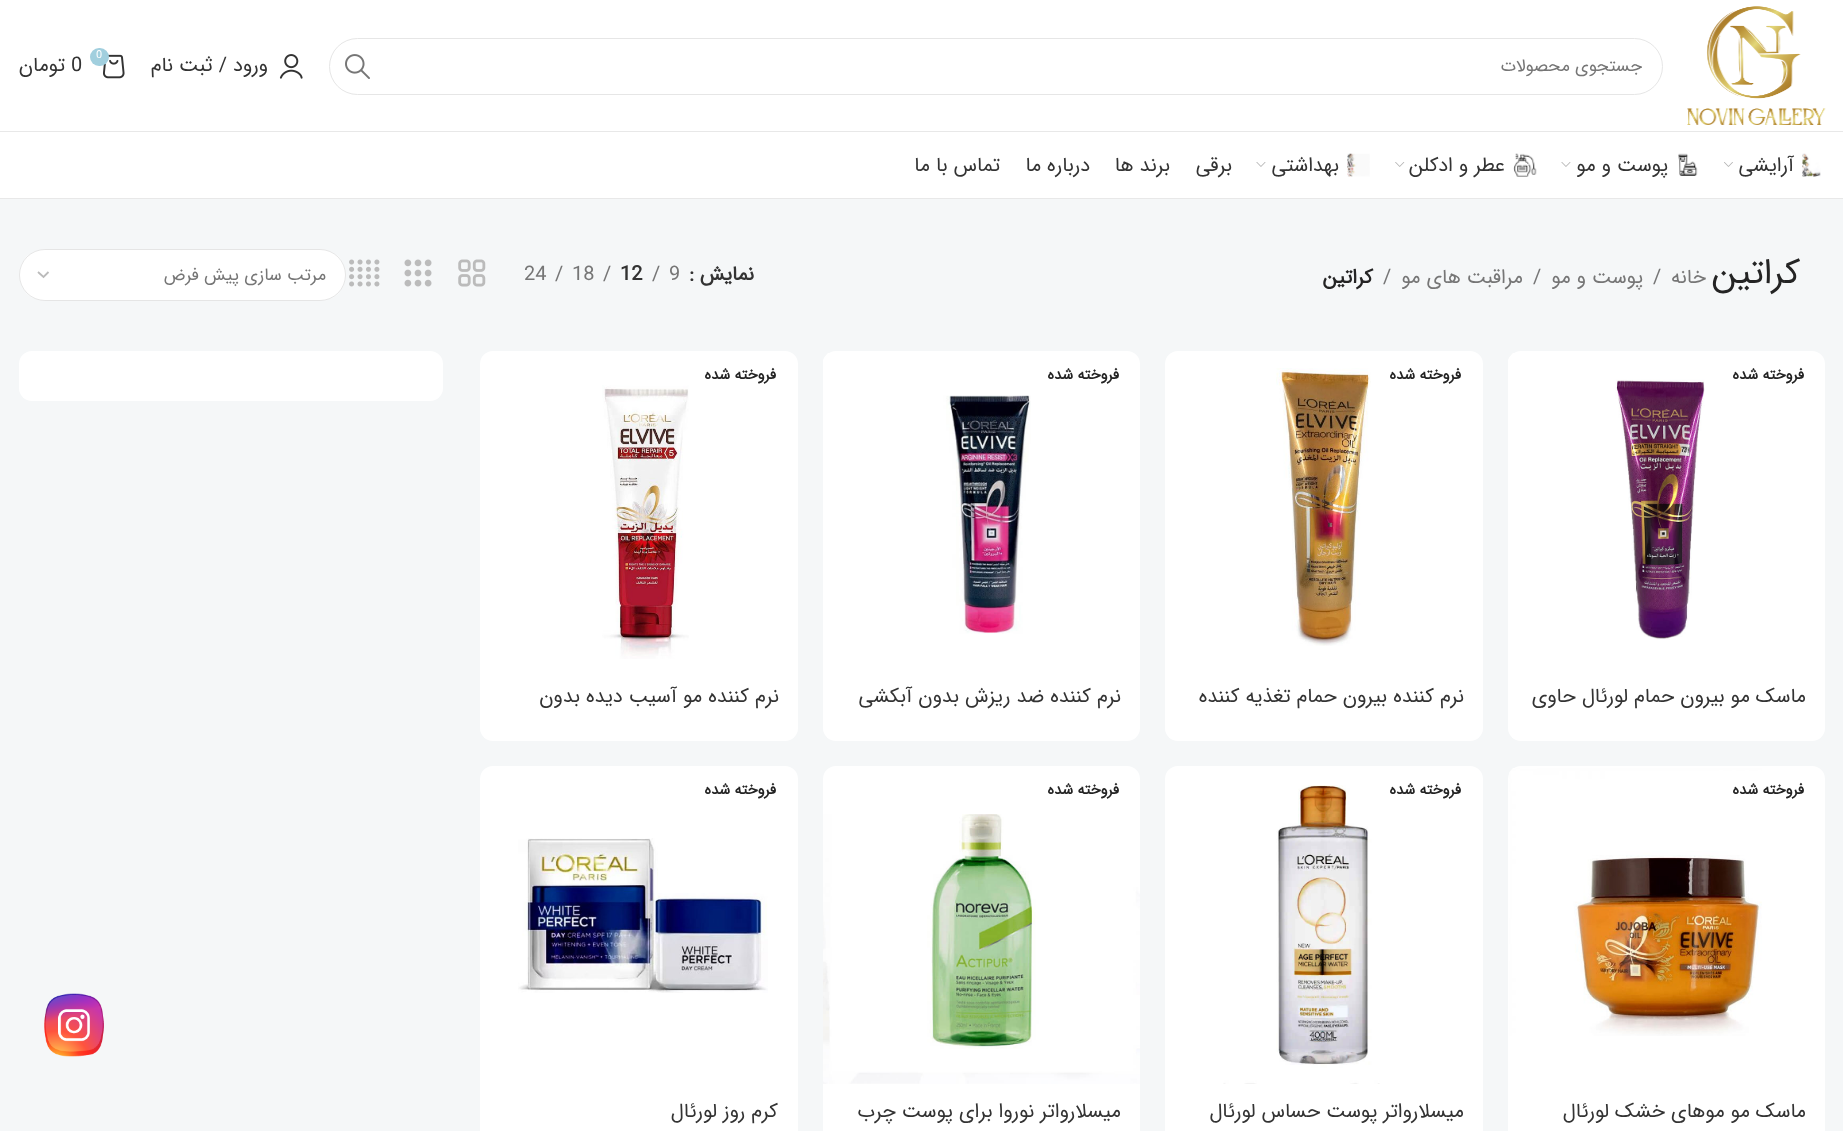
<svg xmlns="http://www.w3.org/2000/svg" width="1843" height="1131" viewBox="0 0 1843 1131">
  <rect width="100%" height="100%" fill="#ffffff"/>
  <rect x="0" y="131" width="1843" height="1" fill="#e8e8e8"/>
  <image x="1687" y="6" width="139" height="119" href="img1.png"/>
  <rect x="329.5" y="38.5" width="1333" height="56" rx="28" fill="none" stroke="#e6e6e6"/>
  <text x="1642" y="71" font-family="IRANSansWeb" font-size="17.5" direction="rtl" fill="#767676">جستجوی محصولات</text>
  <image x="345" y="54" width="25" height="25" href="img2.png"/>
  <image x="279" y="54" width="24" height="25" href="img3.png"/>
  <text x="268" y="71" font-family="IRANSansWeb" font-size="20" direction="rtl" fill="#333333">ورود / ثبت نام</text>
  <image x="103" y="54" width="22" height="25" href="img4.png"/>
  <rect x="90" y="48" width="19" height="18" rx="9" fill="#a1cfde"/>
  <text x="96" y="58" font-family="IRANSansWeb" font-size="11" fill="#ffffff">0</text>
  <text x="71" y="71" font-family="IRANSansWeb" font-size="20" fill="#333333">0</text>
  <text x="65" y="71" font-family="IRANSansWeb" font-size="20" direction="rtl" fill="#333333">تومان</text>
  <rect x="0" y="198" width="1843" height="1" fill="#e8e8e8"/>
  <image x="1802" y="153" width="19" height="24" href="img5.png"/>
  <text x="1794" y="171" font-family="IRANSansWeb" font-size="20" direction="rtl" fill="#333333">آرایشی</text>
  <image x="1724" y="162" width="9" height="5" href="img6.png"/>
  <image x="1678" y="153" width="20" height="23" href="img7.png"/>
  <text x="1668" y="171" font-family="IRANSansWeb" font-size="20" direction="rtl" fill="#333333">پوست و مو</text>
  <image x="1561" y="162" width="10" height="5" href="img8.png"/>
  <image x="1513" y="153" width="24" height="24" href="img9.png"/>
  <text x="1505" y="171" font-family="IRANSansWeb" font-size="20" direction="rtl" fill="#333333">عطر و ادکلن</text>
  <image x="1395" y="162" width="10" height="5" href="img10.png"/>
  <image x="1347" y="153" width="23" height="24" href="img11.png"/>
  <text x="1339" y="171" font-family="IRANSansWeb" font-size="20" direction="rtl" fill="#333333">بهداشتی</text>
  <image x="1256" y="162" width="10" height="5" href="img8.png"/>
  <text x="1232" y="171" font-family="IRANSansWeb" font-size="20" direction="rtl" fill="#333333">برقی</text>
  <text x="1170" y="171" font-family="IRANSansWeb" font-size="20" direction="rtl" fill="#333333">برند ها</text>
  <text x="1090" y="171" font-family="IRANSansWeb" font-size="20" direction="rtl" fill="#333333">درباره ما</text>
  <text x="1000" y="171" font-family="IRANSansWeb" font-size="20" direction="rtl" fill="#333333">تماس با ما</text>
  <rect x="0" y="199" width="1843" height="932" fill="#f5f7f8"/>
  <text x="1800" y="283" font-family="IRANSansWeb" font-size="35" direction="rtl" fill="#242424">کراتین</text>
  <text x="1706" y="283" font-family="IRANSansWeb" font-size="20" direction="rtl" fill="#767676">خانه</text>
  <text x="1653" y="283" font-family="IRANSansWeb" font-size="20" fill="#767676">/</text>
  <text x="1643" y="283" font-family="IRANSansWeb" font-size="20" direction="rtl" fill="#767676">پوست و مو</text>
  <text x="1533" y="283" font-family="IRANSansWeb" font-size="20" fill="#767676">/</text>
  <text x="1523" y="283" font-family="IRANSansWeb" font-size="20" direction="rtl" fill="#767676">مراقبت های مو</text>
  <text x="1383" y="283" font-family="IRANSansWeb" font-size="20" fill="#767676">/</text>
  <text x="1373" y="283" font-family="IRANSansWeb" font-size="20" font-weight="bold" direction="rtl" fill="#242424">کراتین</text>
  <text x="754" y="280" font-family="IRANSansWeb" font-size="20" font-weight="bold" direction="rtl" fill="#333333">نمایش</text>
  <text x="689" y="280" font-family="IRANSansWeb" font-size="20" font-weight="bold" fill="#333333">:</text>
  <text x="669" y="280" font-family="IRANSansWeb" font-size="20" fill="#767676">9</text>
  <text x="652" y="280" font-family="IRANSansWeb" font-size="20" fill="#767676">/</text>
  <text x="620" y="280" font-family="IRANSansWeb" font-size="20" font-weight="bold" fill="#333333">12</text>
  <text x="603" y="280" font-family="IRANSansWeb" font-size="20" fill="#767676">/</text>
  <text x="572" y="280" font-family="IRANSansWeb" font-size="20" fill="#767676">18</text>
  <text x="555" y="280" font-family="IRANSansWeb" font-size="20" fill="#767676">/</text>
  <text x="524" y="280" font-family="IRANSansWeb" font-size="20" fill="#767676">24</text>
  <image x="458" y="259" width="28" height="28" href="img12.png"/>
  <image x="404" y="259" width="28" height="28" href="img13.png"/>
  <image x="349" y="259" width="31" height="28" href="img14.png"/>
  <rect x="19" y="249" width="327" height="52" rx="26" fill="#ffffff"/>
  <path d="M38 272L43.5 277L48.5 272" fill="none" stroke="#bbbbbb" stroke-width="1.8"/>
  <rect x="19.5" y="249.5" width="326" height="51" rx="25.5" fill="none" stroke="#000000" stroke-opacity="0.1"/>
  <text x="326" y="280" font-family="IRANSansWeb" font-size="17.5" direction="rtl" fill="#767676">مرتب سازی پیش فرض</text>
  <rect x="1508" y="351" width="317" height="390" rx="13" fill="#ffffff"/>
  <text x="1804" y="379" font-family="IRANSansWeb" font-size="15" font-weight="bold" direction="rtl" fill="#242424">فروخته شده</text>
  <image x="1508" y="353" width="197" height="287" href="img15.png"/>
  <text x="1806" y="702" font-family="IRANSansWeb" font-size="20" direction="rtl" fill="#333333">ماسک مو بیرون حمام لورئال حاوی</text>
  <rect x="1165" y="351" width="318" height="390" rx="13" fill="#ffffff"/>
  <text x="1461" y="379" font-family="IRANSansWeb" font-size="15" font-weight="bold" direction="rtl" fill="#242424">فروخته شده</text>
  <image x="1276" y="368" width="95" height="278" href="img16.png"/>
  <text x="1464" y="702" font-family="IRANSansWeb" font-size="20" direction="rtl" fill="#333333">نرم کننده بیرون حمام تغذیه کننده</text>
  <rect x="823" y="351" width="317" height="390" rx="13" fill="#ffffff"/>
  <text x="1119" y="379" font-family="IRANSansWeb" font-size="15" font-weight="bold" direction="rtl" fill="#242424">فروخته شده</text>
  <image x="823" y="353" width="208" height="281" href="img17.png"/>
  <text x="1121" y="702" font-family="IRANSansWeb" font-size="20" direction="rtl" fill="#333333">نرم کننده ضد ریزش بدون آبکشی</text>
  <rect x="480" y="351" width="318" height="390" rx="13" fill="#ffffff"/>
  <text x="776" y="379" font-family="IRANSansWeb" font-size="15" font-weight="bold" direction="rtl" fill="#242424">فروخته شده</text>
  <image x="602" y="385" width="87" height="274" href="img18.png"/>
  <text x="779" y="702" font-family="IRANSansWeb" font-size="20" direction="rtl" fill="#333333">نرم کننده مو آسیب دیده بدون</text>
  <rect x="1508" y="766" width="317" height="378" rx="13" fill="#ffffff"/>
  <image x="1509" y="768" width="253" height="268" href="img19.png"/>
  <text x="1804" y="794" font-family="IRANSansWeb" font-size="15" font-weight="bold" direction="rtl" fill="#242424">فروخته شده</text>
  <text x="1806" y="1117" font-family="IRANSansWeb" font-size="20" direction="rtl" fill="#333333">ماسک مو موهای خشک لورئال</text>
  <rect x="1165" y="766" width="318" height="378" rx="13" fill="#ffffff"/>
  <text x="1461" y="794" font-family="IRANSansWeb" font-size="15" font-weight="bold" direction="rtl" fill="#242424">فروخته شده</text>
  <image x="1223" y="785" width="157" height="299" href="img20.png"/>
  <text x="1464" y="1117" font-family="IRANSansWeb" font-size="20" direction="rtl" fill="#333333">میسلارواتر پوست حساس لورئال</text>
  <rect x="823" y="766" width="317" height="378" rx="13" fill="#ffffff"/>
  <text x="1119" y="794" font-family="IRANSansWeb" font-size="15" font-weight="bold" direction="rtl" fill="#242424">فروخته شده</text>
  <image x="823" y="814" width="317" height="270" href="img21.png"/>
  <text x="1121" y="1117" font-family="IRANSansWeb" font-size="20" direction="rtl" fill="#333333">میسلارواتر نوروا برای پوست چرب</text>
  <rect x="480" y="766" width="318" height="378" rx="13" fill="#ffffff"/>
  <text x="776" y="794" font-family="IRANSansWeb" font-size="15" font-weight="bold" direction="rtl" fill="#242424">فروخته شده</text>
  <image x="518" y="838" width="250" height="155" href="img22.png"/>
  <text x="778" y="1117" font-family="IRANSansWeb" font-size="20" direction="rtl" fill="#333333">کرم روز لورئال</text>
  <rect x="19" y="351" width="424" height="50" rx="13" fill="#ffffff"/>
  <image x="44" y="993" width="60" height="64" href="img23.png"/>
</svg>
